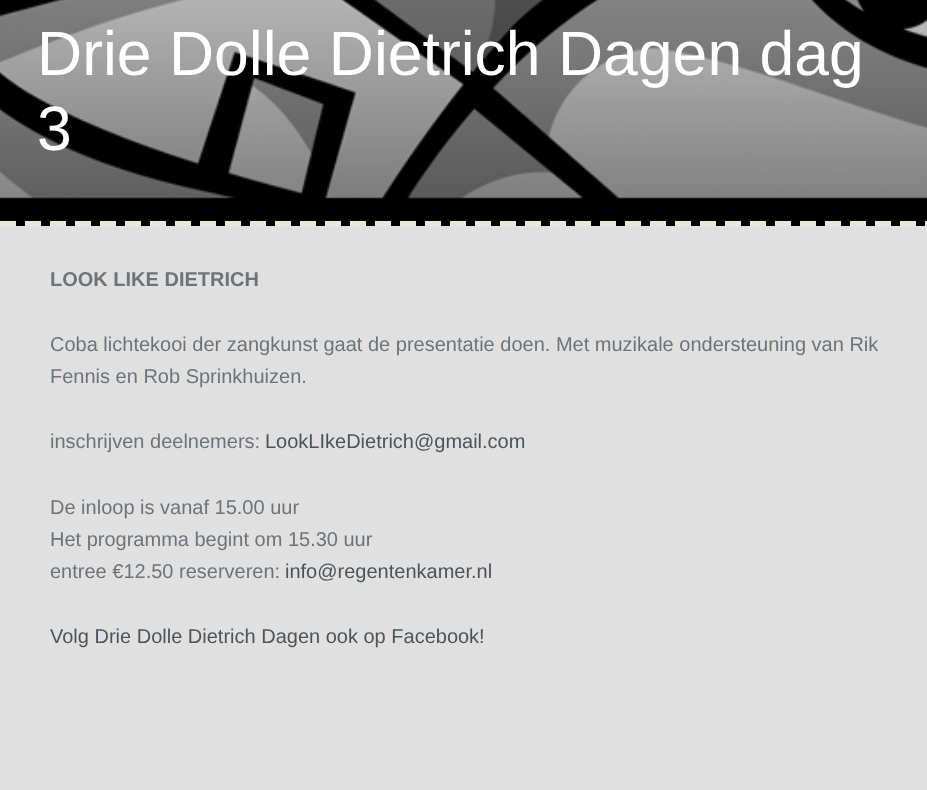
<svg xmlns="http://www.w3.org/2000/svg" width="927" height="790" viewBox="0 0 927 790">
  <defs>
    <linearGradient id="g1" gradientUnits="userSpaceOnUse" x1="464" y1="-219" x2="464" y2="221"><stop offset="0" stop-color="#000000" stop-opacity="0"/><stop offset="1" stop-color="#000000" stop-opacity="0.5"/></linearGradient>
  </defs>
  <rect width="100%" height="100%" fill="#e0e0e0"/>
  <rect x="0" y="199" width="927" height="27" fill="#000000"/>
  <image x="0" y="0" width="927" height="199" href="img1.png"/>
  <rect x="0" y="0" width="927" height="199" fill="url(#g1)"/>
  <text x="37" y="75" font-family="Liberation Sans" font-size="62.5" fill="#ffffff">Drie Dolle Dietrich Dagen dag</text>
  <text x="37" y="150" font-family="Liberation Sans" font-size="62.5" fill="#ffffff">3</text>
  <image x="0" y="221" width="927" height="5" href="img2.png"/>
  <text x="50" y="286" font-family="Liberation Sans" font-size="20" font-weight="bold" fill="#6b747a">LOOK LIKE DIETRICH</text>
  <text x="50" y="351" font-family="Liberation Sans" font-size="20" fill="#6b747a">Coba lichtekooi der zangkunst gaat de presentatie doen. Met muzikale ondersteuning van Rik</text>
  <text x="50" y="383" font-family="Liberation Sans" font-size="20" fill="#6b747a">Fennis en Rob Sprinkhuizen.</text>
  <text x="50" y="448" font-family="Liberation Sans" font-size="20" fill="#6b747a">inschrijven deelnemers:</text>
  <text x="265" y="448" font-family="Liberation Sans" font-size="20" fill="#4a545a">LookLIkeDietrich@gmail.com</text>
  <text x="50" y="514" font-family="Liberation Sans" font-size="20" fill="#6b747a">De inloop is vanaf 15.00 uur</text>
  <text x="50" y="546" font-family="Liberation Sans" font-size="20" fill="#6b747a">Het programma begint om 15.30 uur</text>
  <text x="50" y="578" font-family="Liberation Sans" font-size="20" fill="#6b747a">entree €12.50 reserveren:</text>
  <text x="285" y="578" font-family="Liberation Sans" font-size="20" fill="#4a545a">info@regentenkamer.nl</text>
  <text x="50" y="643" font-family="Liberation Sans" font-size="20" fill="#4a545a">Volg Drie Dolle Dietrich Dagen ook op Facebook!</text>
  <path d="M50 714.5H339" fill="none" stroke="#dddddd" stroke-width="1.2" stroke-dasharray="1.25 1.25"/>
</svg>
